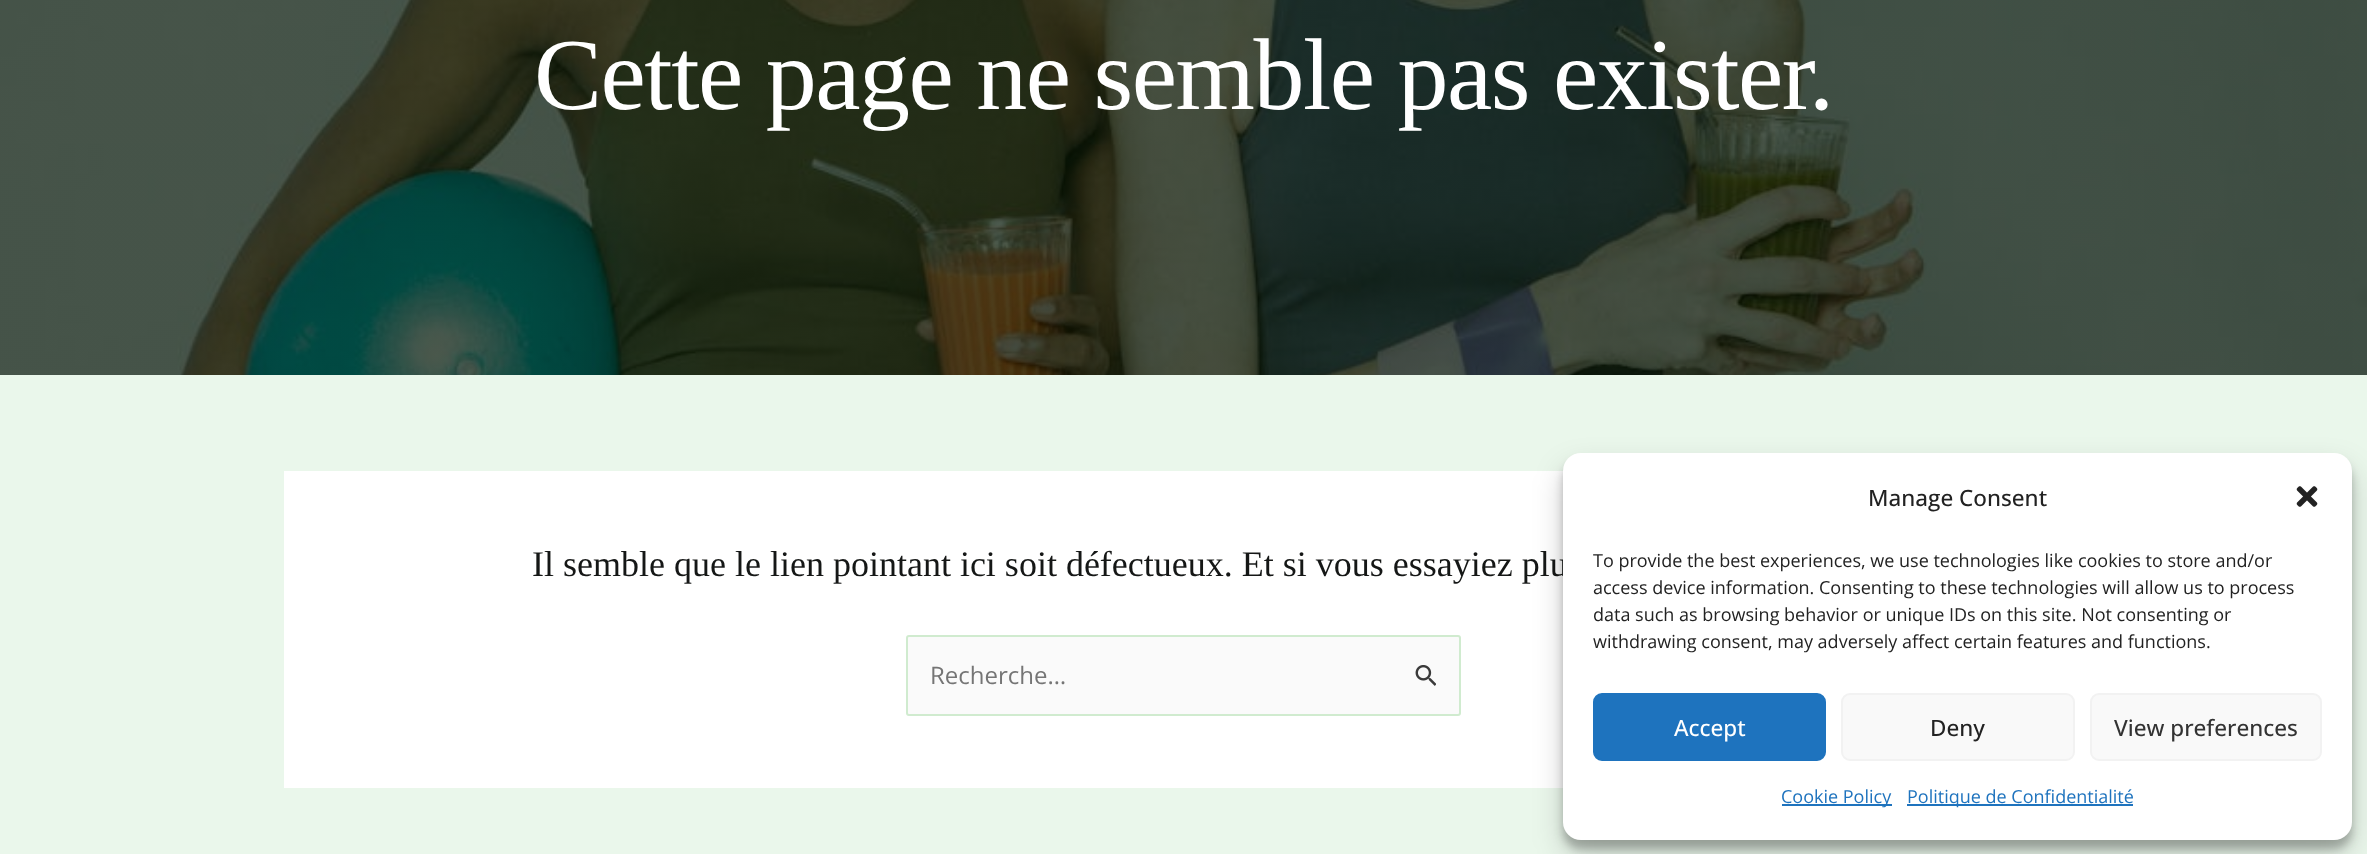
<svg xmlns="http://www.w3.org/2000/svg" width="2367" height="854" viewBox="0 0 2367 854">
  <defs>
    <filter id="blur1" x="-50%" y="-200%" width="200%" height="500%"><feGaussianBlur stdDeviation="4.5"/></filter>
    <filter id="blur2" x="-50%" y="-200%" width="200%" height="500%"><feGaussianBlur stdDeviation="15"/></filter>
  </defs>
  <rect width="100%" height="100%" fill="#eaf7eb"/>
  <image x="0" y="0" width="2367" height="375" href="img1.png"/>
  <text x="534" y="109" font-family="Liberation Serif" font-size="102" letter-spacing="-1.5" fill="#ffffff">Cette page ne semble pas exister.</text>
  <rect x="284" y="471" width="1279" height="317" fill="#ffffff"/>
  <text x="532" y="576" font-family="Liberation Serif" font-size="36" fill="#151716">Il semble que le lien pointant ici soit défectueux. Et si vous essayiez plu</text>
  <rect x="907" y="636" width="553" height="79" rx="2" fill="#fafafa" stroke="#d0ebcf" stroke-width="2"/>
  <text x="930" y="684" font-family="Open Sans" font-size="24" fill="#757575">Recherche…</text>
  <image x="1415" y="665" width="21" height="21" href="img2.png"/>
  <rect x="1563" y="462" width="789" height="387" rx="18" fill="#000000" fill-opacity="0.23" filter="url(#blur1)"/>
  <rect x="1563" y="468" width="789" height="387" rx="18" fill="#000000" fill-opacity="0.19" filter="url(#blur2)"/>
  <rect x="1563" y="453" width="789" height="387" rx="18" fill="#ffffff"/>
  <text x="1868" y="506" font-family="Open Sans" font-size="22.5" font-weight="500" fill="#222222">Manage Consent</text>
  <image x="2296" y="486" width="22" height="21" href="img3.png"/>
  <text x="1593" y="567" font-family="Open Sans" font-size="18" fill="#222222">To provide the best experiences, we use technologies like cookies to store and/or</text>
  <text x="1593" y="594" font-family="Open Sans" font-size="18" fill="#222222">access device information. Consenting to these technologies will allow us to process</text>
  <text x="1593" y="621" font-family="Open Sans" font-size="18" fill="#222222">data such as browsing behavior or unique IDs on this site. Not consenting or</text>
  <text x="1593" y="648" font-family="Open Sans" font-size="18" fill="#222222">withdrawing consent, may adversely affect certain features and functions.</text>
  <rect x="1594" y="694" width="231" height="66" rx="8" fill="#1e73be" stroke="#1e73be" stroke-width="2"/>
  <text x="1674" y="736" font-family="Open Sans" font-size="22.5" font-weight="500" fill="#ffffff">Accept</text>
  <rect x="1842" y="694" width="232" height="66" rx="8" fill="#f9f9f9" stroke="#f2f2f2" stroke-width="2"/>
  <text x="1930" y="736" font-family="Open Sans" font-size="22.5" font-weight="500" fill="#222222">Deny</text>
  <rect x="2091" y="694" width="230" height="66" rx="8" fill="#f9f9f9" stroke="#f2f2f2" stroke-width="2"/>
  <text x="2114" y="736" font-family="Open Sans" font-size="22.5" font-weight="500" fill="#333333">View preferences</text>
  <rect x="1782" y="804" width="110" height="2" fill="#1e73be"/>
  <text x="1781" y="803" font-family="Open Sans" font-size="18" fill="#1e73be">Cookie Policy</text>
  <rect x="1907" y="804" width="226" height="2" fill="#1e73be"/>
  <text x="1907" y="803" font-family="Open Sans" font-size="18" fill="#1e73be">Politique de Confidentialité</text>
</svg>
